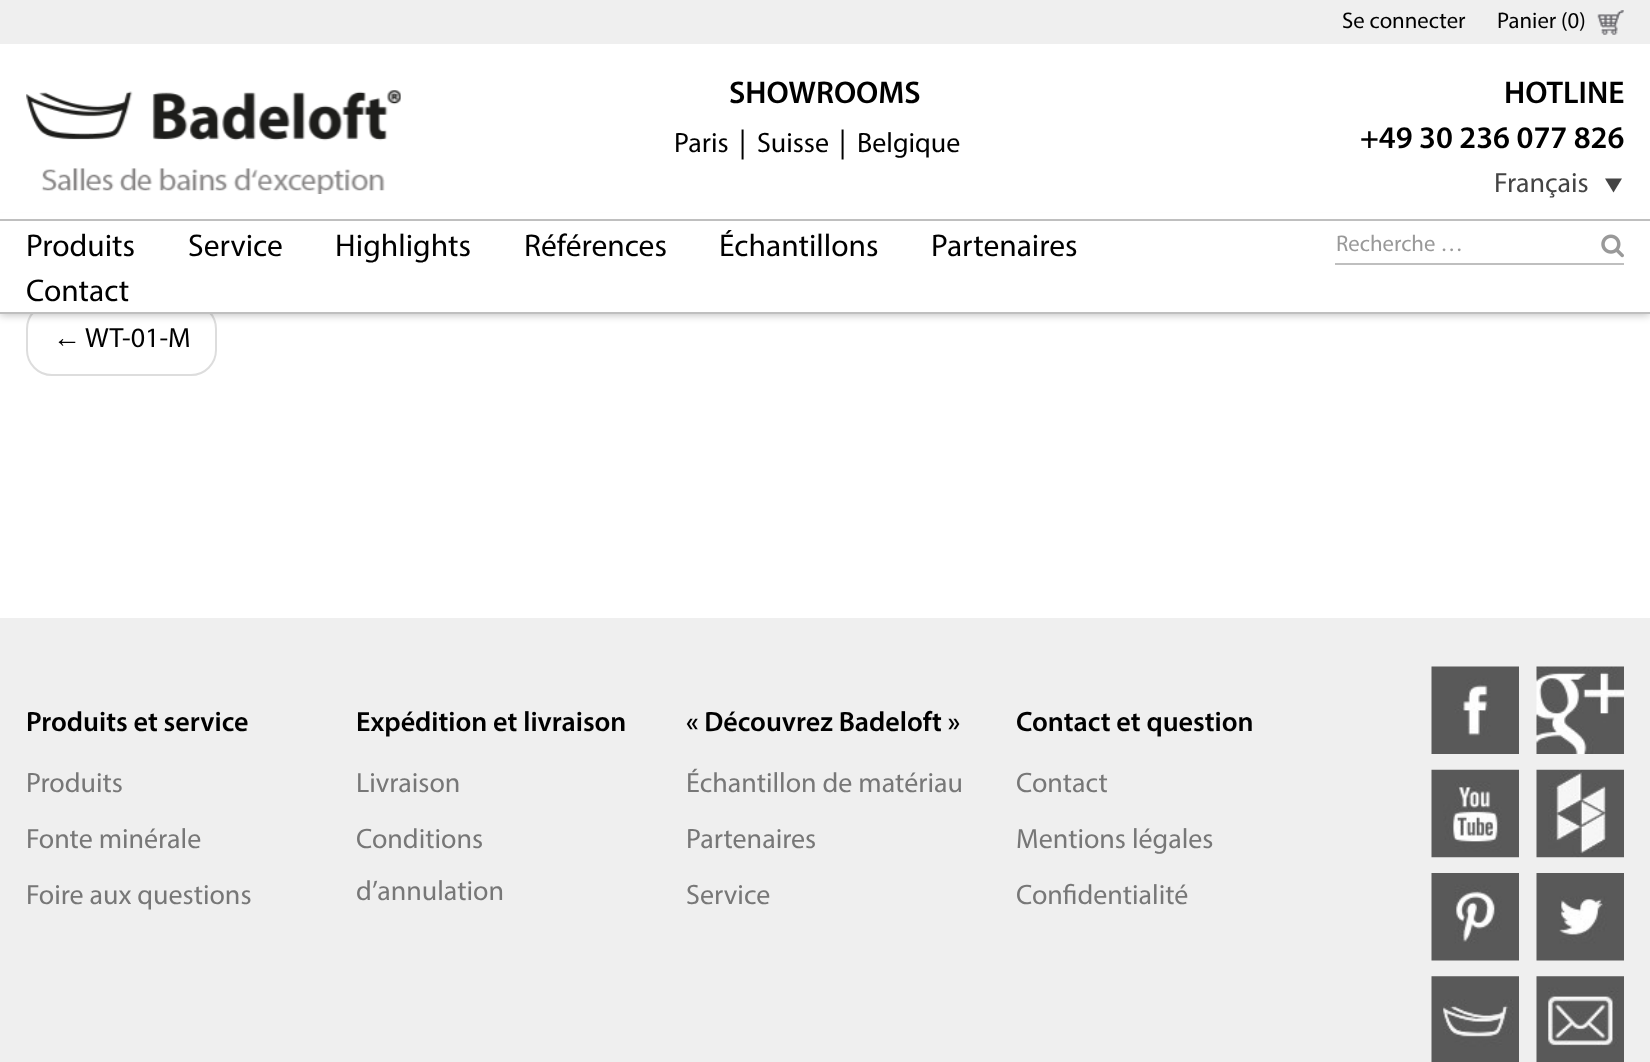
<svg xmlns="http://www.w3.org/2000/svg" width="1650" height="1062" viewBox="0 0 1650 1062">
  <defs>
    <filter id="blur1" x="-50%" y="-200%" width="200%" height="500%"><feGaussianBlur stdDeviation="4.5"/></filter>
  </defs>
  <rect width="100%" height="100%" fill="#ffffff"/>
  <rect x="0" y="0" width="1650" height="44" fill="#efefef"/>
  <text x="1342" y="28" font-family="Myriad" font-size="22.75" fill="#000000">Se connecter</text>
  <image x="1597" y="10" width="27" height="25" href="img1.png"/>
  <text x="1497" y="28" font-family="Myriad" font-size="22.75" fill="#000000">Panier (0)</text>
  <rect x="27" y="304" width="189" height="71" rx="25" fill="none" stroke="#dddddd" stroke-width="2"/>
  <rect x="0" y="221" width="1650" height="94" fill="#000000" fill-opacity="0.25" filter="url(#blur1)"/>
  <rect x="0" y="213" width="1650" height="6" fill="#ffffff"/>
  <image x="26" y="90" width="375" height="104" href="img2.png"/>
  <text x="729" y="103" font-family="Myriad" font-size="31.5" font-weight="600" fill="#000000">SHOWROOMS</text>
  <text x="674" y="152" font-family="Myriad" font-size="28" fill="#000000">Paris</text>
  <text x="739" y="152" font-family="Myriad" font-size="30" fill="#000000">|</text>
  <text x="757" y="152" font-family="Myriad" font-size="28" fill="#000000">Suisse</text>
  <text x="839" y="152" font-family="Myriad" font-size="30" fill="#000000">|</text>
  <text x="857" y="152" font-family="Myriad" font-size="28" fill="#000000">Belgique</text>
  <text x="1504" y="103" font-family="Myriad" font-size="31.5" font-weight="600" fill="#000000">HOTLINE</text>
  <text x="1360" y="148" font-family="Myriad" font-size="31.5" font-weight="600" fill="#000000">+49 30 236 077 826</text>
  <text x="1494" y="192" font-family="Myriad" font-size="28" fill="#444444">Français</text>
  <path d="M1605 178.5H1622L1613.5 192.5Z" fill="#444444"/>
  <rect x="0" y="221" width="1650" height="91" fill="#ffffff"/>
  <rect x="0" y="219" width="1650" height="2" fill="#bfbfbf"/>
  <rect x="0" y="312" width="1650" height="2" fill="#bfbfbf"/>
  <text x="26" y="256" font-family="Myriad" font-size="31.5" fill="#000000">Produits</text>
  <text x="188" y="256" font-family="Myriad" font-size="31.5" fill="#000000">Service</text>
  <text x="335" y="256" font-family="Myriad" font-size="31.5" fill="#000000">Highlights</text>
  <text x="524" y="256" font-family="Myriad" font-size="31.5" fill="#000000">Références</text>
  <text x="719" y="256" font-family="Myriad" font-size="31.5" fill="#000000">Échantillons</text>
  <text x="931" y="256" font-family="Myriad" font-size="31.5" fill="#000000">Partenaires</text>
  <text x="26" y="301" font-family="Myriad" font-size="31.5" fill="#000000">Contact</text>
  <rect x="1335" y="263" width="289" height="2" fill="#bfbfbf"/>
  <text x="1336" y="251" font-family="Myriad" font-size="22.75" fill="#999999">Recherche …</text>
  <image x="1601" y="234" width="23" height="24" href="img3.png"/>
  <text x="53" y="347" font-family="Liberation Sans" font-size="28" fill="#000000">←</text>
  <text x="85" y="347" font-family="Myriad" font-size="28" fill="#000000">WT-01-M</text>
  <rect x="0" y="618" width="1650" height="444" fill="#efefef"/>
  <text x="26" y="731" font-family="Myriad" font-size="28" font-weight="600" fill="#000000">Produits et service</text>
  <text x="26" y="792" font-family="Myriad" font-size="28" fill="#777777">Produits</text>
  <text x="26" y="848" font-family="Myriad" font-size="28" fill="#777777">Fonte minérale</text>
  <text x="26" y="904" font-family="Myriad" font-size="28" fill="#777777">Foire aux questions</text>
  <text x="356" y="731" font-family="Myriad" font-size="28" font-weight="600" fill="#000000">Expédition et livraison</text>
  <text x="356" y="792" font-family="Myriad" font-size="28" fill="#777777">Livraison</text>
  <text x="356" y="848" font-family="Myriad" font-size="28" fill="#777777">Conditions</text>
  <text x="356" y="900" font-family="Myriad" font-size="28" fill="#777777">d’annulation</text>
  <text x="686" y="731" font-family="Myriad" font-size="28" font-weight="600" fill="#000000">« Découvrez Badeloft »</text>
  <text x="686" y="792" font-family="Myriad" font-size="28" fill="#777777">Échantillon de matériau</text>
  <text x="686" y="848" font-family="Myriad" font-size="28" fill="#777777">Partenaires</text>
  <text x="686" y="904" font-family="Myriad" font-size="28" fill="#777777">Service</text>
  <text x="1016" y="731" font-family="Myriad" font-size="28" font-weight="600" fill="#000000">Contact et question</text>
  <text x="1016" y="792" font-family="Myriad" font-size="28" fill="#777777">Contact</text>
  <text x="1016" y="848" font-family="Myriad" font-size="28" fill="#777777">Mentions légales</text>
  <text x="1016" y="904" font-family="Myriad" font-size="28" fill="#777777">Confidentialité</text>
  <image x="1431" y="666" width="88" height="88" href="img4.png"/>
  <image x="1536" y="666" width="88" height="88" href="img5.png"/>
  <image x="1431" y="769" width="88" height="89" href="img6.png"/>
  <image x="1536" y="769" width="88" height="89" href="img7.png"/>
  <image x="1431" y="873" width="88" height="88" href="img8.png"/>
  <image x="1536" y="873" width="88" height="88" href="img9.png"/>
  <image x="1431" y="976" width="88" height="86" href="img10.png"/>
  <image x="1536" y="976" width="88" height="86" href="img11.png"/>
</svg>
